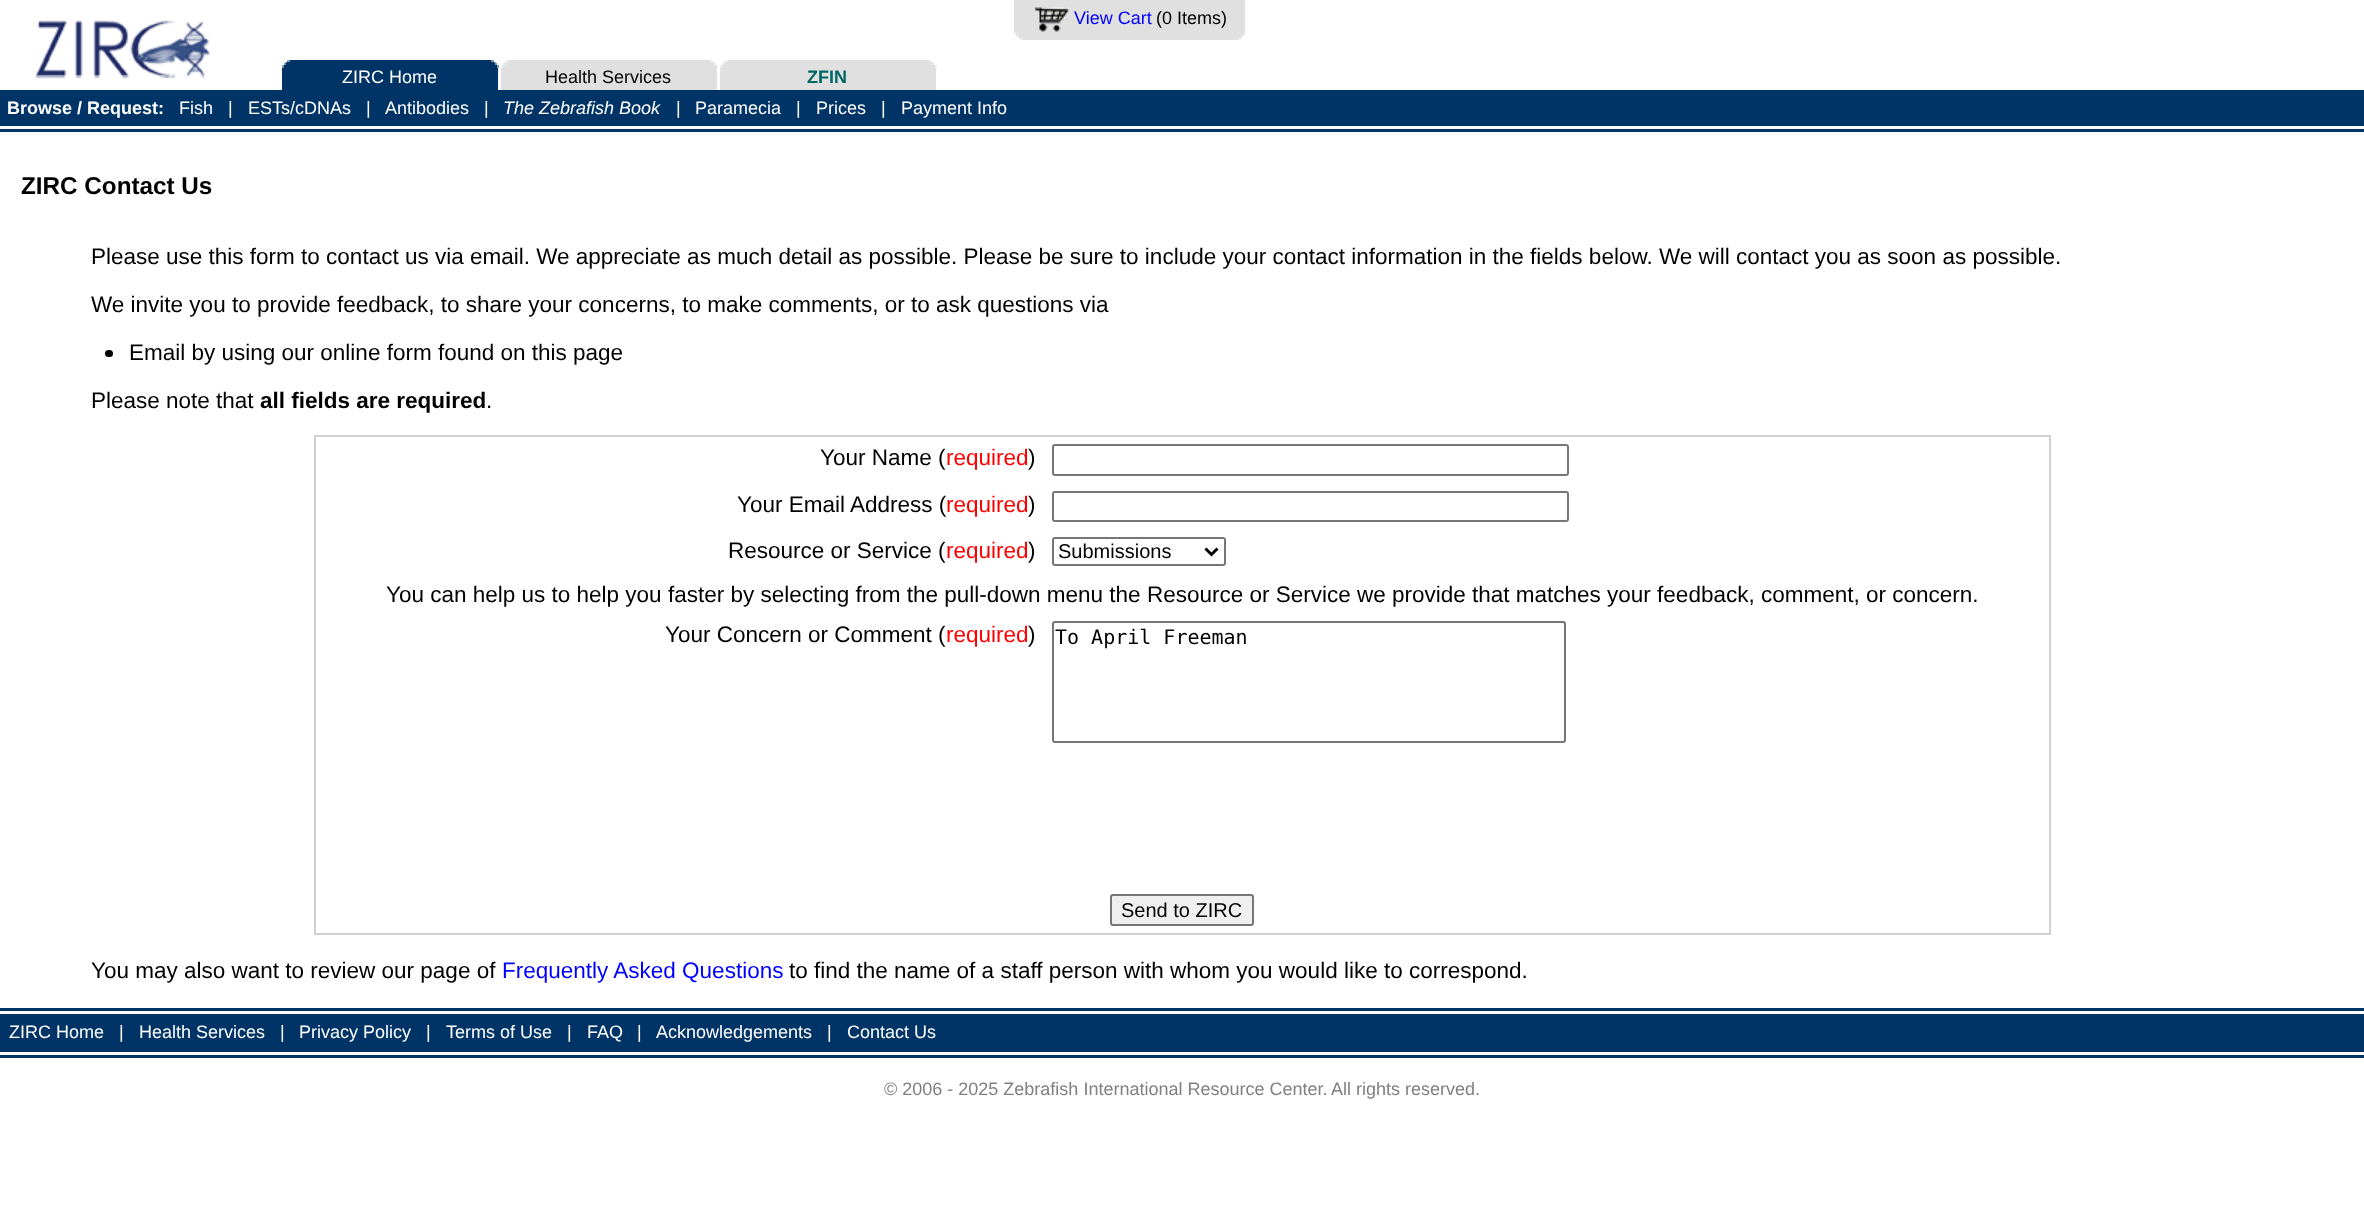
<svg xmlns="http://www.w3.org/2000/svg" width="2364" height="1210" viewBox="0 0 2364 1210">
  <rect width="100%" height="100%" fill="#ffffff"/>
  <image x="36" y="20" width="174" height="59" href="img1.png"/>
  <rect x="1014" y="0" width="231" height="32" fill="#e0e0e0"/>
  <image x="1034" y="7" width="36" height="25" href="img2.png"/>
  <text x="1074" y="24" font-family="Liberation Sans" font-size="18" fill="#0000ff">View Cart</text>
  <text x="1156" y="24" font-family="Liberation Sans" font-size="18" fill="#000000">(0 Items)</text>
  <rect x="1016" y="32" width="228" height="3" fill="#e0e0e0"/>
  <rect x="1244" y="32" width="2" height="3" fill="#efefef"/>
  <rect x="1014" y="32" width="2" height="3" fill="#efefef"/>
  <rect x="1017" y="35" width="225" height="1" fill="#e0e0e0"/>
  <rect x="1242" y="35" width="2" height="2" fill="#efefef"/>
  <rect x="1016" y="35" width="2" height="2" fill="#efefef"/>
  <rect x="1019" y="36" width="222" height="2" fill="#e0e0e0"/>
  <rect x="1241" y="36" width="2" height="2" fill="#efefef"/>
  <rect x="1017" y="36" width="2" height="2" fill="#efefef"/>
  <rect x="1022" y="38" width="216" height="2" fill="#e0e0e0"/>
  <rect x="1238" y="38" width="3" height="2" fill="#efefef"/>
  <rect x="1019" y="38" width="3" height="2" fill="#efefef"/>
  <rect x="282" y="68" width="216" height="22" fill="#003366"/>
  <rect x="290" y="60" width="201" height="2" fill="#003366"/>
  <rect x="491" y="60" width="3" height="2" fill="#7f99b2"/>
  <rect x="287" y="60" width="3" height="2" fill="#7f99b2"/>
  <rect x="287" y="62" width="207" height="1" fill="#003366"/>
  <rect x="494" y="62" width="2" height="1" fill="#7f99b2"/>
  <rect x="285" y="62" width="2" height="1" fill="#7f99b2"/>
  <rect x="285" y="63" width="210" height="2" fill="#003366"/>
  <rect x="495" y="63" width="2" height="2" fill="#7f99b2"/>
  <rect x="284" y="63" width="2" height="2" fill="#7f99b2"/>
  <rect x="284" y="65" width="213" height="3" fill="#003366"/>
  <rect x="497" y="65" width="2" height="3" fill="#7f99b2"/>
  <rect x="282" y="65" width="2" height="3" fill="#7f99b2"/>
  <text x="342" y="83" font-family="Liberation Sans" font-size="18" fill="#ffffff">ZIRC Home</text>
  <rect x="501" y="68" width="216" height="22" fill="#e0e0e0"/>
  <rect x="509" y="60" width="201" height="2" fill="#e0e0e0"/>
  <rect x="710" y="60" width="3" height="2" fill="#efefef"/>
  <rect x="506" y="60" width="3" height="2" fill="#efefef"/>
  <rect x="506" y="62" width="207" height="1" fill="#e0e0e0"/>
  <rect x="713" y="62" width="2" height="1" fill="#efefef"/>
  <rect x="504" y="62" width="2" height="1" fill="#efefef"/>
  <rect x="504" y="63" width="210" height="2" fill="#e0e0e0"/>
  <rect x="714" y="63" width="2" height="2" fill="#efefef"/>
  <rect x="503" y="63" width="2" height="2" fill="#efefef"/>
  <rect x="503" y="65" width="213" height="3" fill="#e0e0e0"/>
  <rect x="716" y="65" width="2" height="3" fill="#efefef"/>
  <rect x="501" y="65" width="2" height="3" fill="#efefef"/>
  <text x="545" y="83" font-family="Liberation Sans" font-size="18" fill="#000000">Health Services</text>
  <rect x="720" y="68" width="216" height="22" fill="#e0e0e0"/>
  <rect x="728" y="60" width="201" height="2" fill="#e0e0e0"/>
  <rect x="929" y="60" width="3" height="2" fill="#efefef"/>
  <rect x="725" y="60" width="3" height="2" fill="#efefef"/>
  <rect x="725" y="62" width="207" height="1" fill="#e0e0e0"/>
  <rect x="932" y="62" width="2" height="1" fill="#efefef"/>
  <rect x="723" y="62" width="2" height="1" fill="#efefef"/>
  <rect x="723" y="63" width="210" height="2" fill="#e0e0e0"/>
  <rect x="933" y="63" width="2" height="2" fill="#efefef"/>
  <rect x="722" y="63" width="2" height="2" fill="#efefef"/>
  <rect x="722" y="65" width="213" height="3" fill="#e0e0e0"/>
  <rect x="935" y="65" width="2" height="3" fill="#efefef"/>
  <rect x="720" y="65" width="2" height="3" fill="#efefef"/>
  <text x="807" y="83" font-family="Liberation Sans" font-size="18" font-weight="bold" fill="#006666">ZFIN</text>
  <rect x="0" y="90" width="2364" height="42" fill="#003366"/>
  <rect x="0" y="126" width="2364" height="3" fill="#ffffff"/>
  <text x="7" y="114" font-family="Liberation Sans" font-size="18" font-weight="bold" fill="#ffffff">Browse / Request:</text>
  <text x="179" y="114" font-family="Liberation Sans" font-size="18" fill="#ffffff">Fish</text>
  <text x="228" y="114" font-family="Liberation Sans" font-size="18" fill="#ffffff">|</text>
  <text x="248" y="114" font-family="Liberation Sans" font-size="18" fill="#ffffff">ESTs/cDNAs</text>
  <text x="366" y="114" font-family="Liberation Sans" font-size="18" fill="#ffffff">|</text>
  <text x="385" y="114" font-family="Liberation Sans" font-size="18" fill="#ffffff">Antibodies</text>
  <text x="484" y="114" font-family="Liberation Sans" font-size="18" fill="#ffffff">|</text>
  <text x="503" y="114" font-family="Liberation Sans" font-size="18" font-style="italic" fill="#ffffff">The Zebrafish Book</text>
  <text x="676" y="114" font-family="Liberation Sans" font-size="18" fill="#ffffff">|</text>
  <text x="695" y="114" font-family="Liberation Sans" font-size="18" fill="#ffffff">Paramecia</text>
  <text x="796" y="114" font-family="Liberation Sans" font-size="18" fill="#ffffff">|</text>
  <text x="816" y="114" font-family="Liberation Sans" font-size="18" fill="#ffffff">Prices</text>
  <text x="881" y="114" font-family="Liberation Sans" font-size="18" fill="#ffffff">|</text>
  <text x="901" y="114" font-family="Liberation Sans" font-size="18" fill="#ffffff">Payment Info</text>
  <text x="21" y="194" font-family="Liberation Sans" font-size="24.25" font-weight="bold" fill="#000000">ZIRC Contact Us</text>
  <text x="91" y="264" font-family="Liberation Sans" font-size="22.5" fill="#000000">Please use this form to contact us via email. We appreciate as much detail as possible. Please be sure to include your contact information in the fields below. We will contact you as soon as possible.</text>
  <text x="91" y="312" font-family="Liberation Sans" font-size="22.5" fill="#000000">We invite you to provide feedback, to share your concerns, to make comments, or to ask questions via</text>
  <rect x="105" y="350" width="8" height="7" rx="3.5" fill="#000000"/>
  <text x="129" y="360" font-family="Liberation Sans" font-size="22.5" fill="#000000">Email by using our online form found on this page</text>
  <text x="91" y="408" font-family="Liberation Sans" font-size="22.5" fill="#000000">Please note that</text>
  <text x="260" y="408" font-family="Liberation Sans" font-size="22.5" font-weight="bold" fill="#000000">all fields are required</text>
  <text x="486" y="408" font-family="Liberation Sans" font-size="22.5" fill="#000000">.</text>
  <rect x="314" y="435" width="1737" height="2" fill="#d0d0d0"/>
  <rect x="2049" y="435" width="2" height="500" fill="#d0d0d0"/>
  <rect x="314" y="933" width="1737" height="2" fill="#d0d0d0"/>
  <rect x="314" y="435" width="2" height="500" fill="#d0d0d0"/>
  <text x="820" y="465" font-family="Liberation Sans" font-size="22.5" fill="#000000">Your Name (</text>
  <text x="946" y="465" font-family="Liberation Sans" font-size="22.5" fill="#ff0000">required</text>
  <text x="1028" y="465" font-family="Liberation Sans" font-size="22.5" fill="#000000">)</text>
  <rect x="1053" y="445" width="515" height="30" rx="2" fill="none" stroke="#767676" stroke-width="2"/>
  <text x="737" y="512" font-family="Liberation Sans" font-size="22.5" fill="#000000">Your Email Address (</text>
  <text x="946" y="512" font-family="Liberation Sans" font-size="22.5" fill="#ff0000">required</text>
  <text x="1028" y="512" font-family="Liberation Sans" font-size="22.5" fill="#000000">)</text>
  <rect x="1053" y="492" width="515" height="29" rx="2" fill="none" stroke="#767676" stroke-width="2"/>
  <text x="728" y="558" font-family="Liberation Sans" font-size="22.5" fill="#000000">Resource or Service (</text>
  <text x="946" y="558" font-family="Liberation Sans" font-size="22.5" fill="#ff0000">required</text>
  <text x="1028" y="558" font-family="Liberation Sans" font-size="22.5" fill="#000000">)</text>
  <rect x="1053" y="538" width="172" height="27" rx="2" fill="none" stroke="#767676" stroke-width="2"/>
  <path d="M1205.5 548.5L1211.5 554.5L1217.5 548.5" fill="none" stroke="#000000" stroke-width="3"/>
  <text x="1058" y="558" font-family="Liberation Sans" font-size="20" fill="#000000">Submissions</text>
  <text x="386" y="602" font-family="Liberation Sans" font-size="22.5" fill="#000000">You can help us to help you faster by selecting from the pull-down menu the Resource or Service we provide that matches your feedback, comment, or concern.</text>
  <text x="665" y="642" font-family="Liberation Sans" font-size="22.5" fill="#000000">Your Concern or Comment (</text>
  <text x="946" y="642" font-family="Liberation Sans" font-size="22.5" fill="#ff0000">required</text>
  <text x="1028" y="642" font-family="Liberation Sans" font-size="22.5" fill="#000000">)</text>
  <rect x="1053" y="622" width="512" height="120" rx="2" fill="none" stroke="#767676" stroke-width="2"/>
  <text x="1055" y="644" font-family="DejaVu Sans Mono" font-size="20" fill="#000000">To April Freeman</text>
  <rect x="1111" y="895" width="142" height="30" rx="2" fill="#efefef" stroke="#767676" stroke-width="2"/>
  <text x="1121" y="917" font-family="Liberation Sans" font-size="20" fill="#000000">Send to ZIRC</text>
  <text x="91" y="978" font-family="Liberation Sans" font-size="22.5" fill="#000000">You may also want to review our page of</text>
  <text x="502" y="978" font-family="Liberation Sans" font-size="22.5" fill="#0000ff">Frequently Asked Questions</text>
  <text x="789" y="978" font-family="Liberation Sans" font-size="22.5" fill="#000000">to find the name of a staff person with whom you would like to correspond.</text>
  <rect x="0" y="1008" width="2364" height="50" fill="#003366"/>
  <rect x="0" y="1011" width="2364" height="3" fill="#ffffff"/>
  <rect x="0" y="1052" width="2364" height="3" fill="#ffffff"/>
  <text x="9" y="1038" font-family="Liberation Sans" font-size="18" fill="#ffffff">ZIRC Home</text>
  <text x="119" y="1038" font-family="Liberation Sans" font-size="18" fill="#ffffff">|</text>
  <text x="139" y="1038" font-family="Liberation Sans" font-size="18" fill="#ffffff">Health Services</text>
  <text x="280" y="1038" font-family="Liberation Sans" font-size="18" fill="#ffffff">|</text>
  <text x="299" y="1038" font-family="Liberation Sans" font-size="18" fill="#ffffff">Privacy Policy</text>
  <text x="426" y="1038" font-family="Liberation Sans" font-size="18" fill="#ffffff">|</text>
  <text x="446" y="1038" font-family="Liberation Sans" font-size="18" fill="#ffffff">Terms of Use</text>
  <text x="567" y="1038" font-family="Liberation Sans" font-size="18" fill="#ffffff">|</text>
  <text x="587" y="1038" font-family="Liberation Sans" font-size="18" fill="#ffffff">FAQ</text>
  <text x="637" y="1038" font-family="Liberation Sans" font-size="18" fill="#ffffff">|</text>
  <text x="656" y="1038" font-family="Liberation Sans" font-size="18" fill="#ffffff">Acknowledgements</text>
  <text x="827" y="1038" font-family="Liberation Sans" font-size="18" fill="#ffffff">|</text>
  <text x="847" y="1038" font-family="Liberation Sans" font-size="18" fill="#ffffff">Contact Us</text>
  <text x="884" y="1095" font-family="Liberation Sans" font-size="18" fill="#808080">© 2006 - 2025 Zebrafish International Resource Center.</text>
  <text x="1331" y="1095" font-family="Liberation Sans" font-size="18" fill="#808080">All rights reserved.</text>
</svg>
